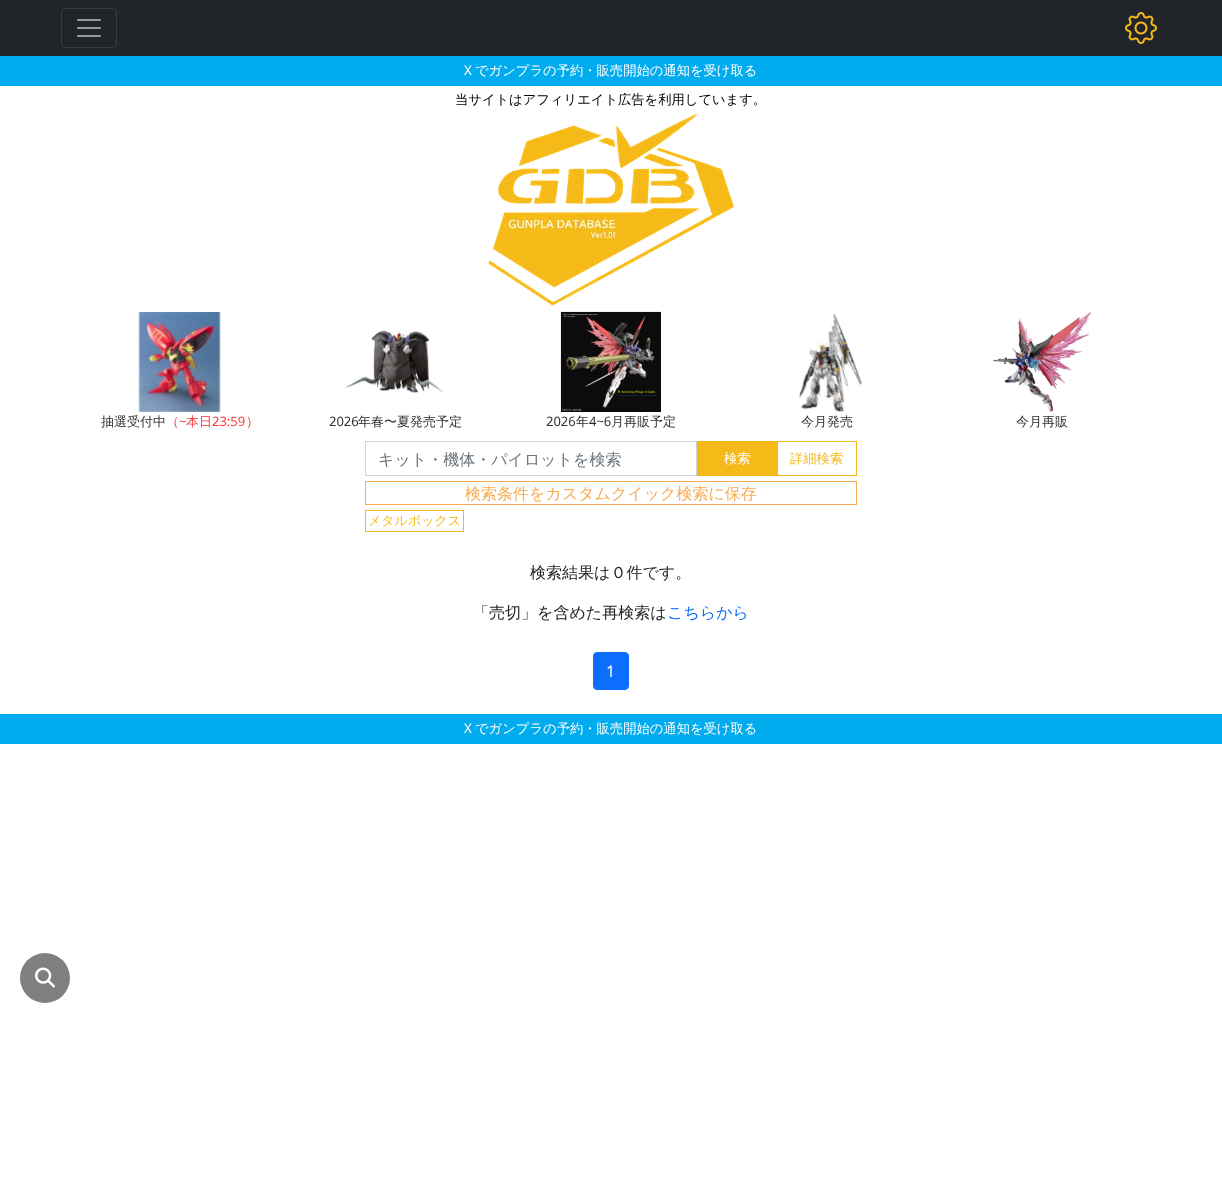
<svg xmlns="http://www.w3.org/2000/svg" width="1222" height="1180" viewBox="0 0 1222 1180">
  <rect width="100%" height="100%" fill="#ffffff"/>
  <rect x="0" y="0" width="1222" height="56" fill="#212529"/>
  <rect x="61.5" y="8.5" width="55" height="39" rx="3.5" fill="none" stroke="#373b3e"/>
  <image x="77" y="19" width="24" height="18" href="img1.png"/>
  <image x="1125" y="12" width="32" height="32" href="img2.png"/>
  <rect x="0" y="56" width="1222" height="30" fill="#00acee"/>
  <text x="464" y="75" font-family="Noto Sans" font-size="13.3" fill="#ffffff">X</text>
  <text x="475" y="75" font-family="WenQuanYi Zen Hei" font-size="13.3" font-weight="500" fill="#ffffff">でガンプラの予約・販売開始の通知を受け取る</text>
  <text x="455" y="104" font-family="WenQuanYi Zen Hei" font-size="13.3" font-weight="500" fill="#000000">当サイトはアフィリエイト広告を利用しています。</text>
  <image x="488" y="114" width="246" height="192" href="img3.png"/>
  <image x="138" y="312" width="83" height="100" href="img4.png"/>
  <text x="101" y="426" font-family="WenQuanYi Zen Hei" font-size="13" font-weight="500" fill="#313131">抽選受付中</text>
  <text x="166" y="426" font-family="WenQuanYi Zen Hei" font-size="13" font-weight="500" fill="#fe3939">（</text>
  <text x="179" y="426" font-family="Noto Sans" font-size="13" fill="#fe3939">~</text>
  <text x="186" y="426" font-family="WenQuanYi Zen Hei" font-size="13" font-weight="500" fill="#fe3939">本日</text>
  <text x="212" y="426" font-family="Noto Sans" font-size="13" fill="#fe3939">23:59</text>
  <text x="246" y="426" font-family="WenQuanYi Zen Hei" font-size="13" font-weight="500" fill="#fe3939">）</text>
  <image x="346" y="330" width="98" height="64" href="img5.png"/>
  <text x="329" y="426" font-family="Noto Sans" font-size="13" fill="#313131">2026</text>
  <text x="358" y="426" font-family="WenQuanYi Zen Hei" font-size="13" font-weight="500" fill="#313131">年春〜夏発売予定</text>
  <image x="560" y="311" width="101" height="101" href="img6.png"/>
  <text x="546" y="426" font-family="Noto Sans" font-size="13" fill="#313131">2026</text>
  <text x="576" y="426" font-family="WenQuanYi Zen Hei" font-size="13" font-weight="500" fill="#313131">年</text>
  <text x="589" y="426" font-family="Noto Sans" font-size="13" fill="#313131">4~6</text>
  <text x="611" y="426" font-family="WenQuanYi Zen Hei" font-size="13" font-weight="500" fill="#313131">月再販予定</text>
  <image x="799" y="313" width="64" height="99" href="img7.png"/>
  <text x="801" y="426" font-family="WenQuanYi Zen Hei" font-size="13" font-weight="500" fill="#313131">今月発売</text>
  <image x="992" y="312" width="99" height="100" href="img8.png"/>
  <text x="1016" y="426" font-family="WenQuanYi Zen Hei" font-size="13" font-weight="500" fill="#313131">今月再販</text>
  <rect x="365.5" y="441.5" width="331" height="34" fill="none" stroke="#ced4da"/>
  <text x="378" y="465" font-family="WenQuanYi Zen Hei" font-size="16" font-weight="500" fill="#6c757d">キット・機体・パイロットを検索</text>
  <rect x="697" y="441" width="80" height="35" fill="#f5ba18"/>
  <text x="724" y="463" font-family="WenQuanYi Zen Hei" font-size="13.3" font-weight="500" fill="#ffffff">検索</text>
  <rect x="777.5" y="441.5" width="79" height="34" fill="none" stroke="#f5ba18"/>
  <text x="790" y="463" font-family="WenQuanYi Zen Hei" font-size="13.3" font-weight="500" fill="#f5ba18">詳細検索</text>
  <rect x="365.5" y="481.5" width="491" height="23" fill="none" stroke="#f7aa52"/>
  <text x="465" y="499" font-family="WenQuanYi Zen Hei" font-size="16" font-weight="500" fill="#f7aa52">検索条件をカスタムクイック検索に保存</text>
  <rect x="365.5" y="510.5" width="98" height="21" fill="none" stroke="#f5ba18"/>
  <text x="368" y="525" font-family="WenQuanYi Zen Hei" font-size="13" font-weight="500" fill="#f5ba18">メタルボックス</text>
  <text x="530" y="578" font-family="WenQuanYi Zen Hei" font-size="16" font-weight="500" fill="#212529">検索結果は０件です。</text>
  <text x="473" y="618" font-family="WenQuanYi Zen Hei" font-size="16" font-weight="500" fill="#212529">「売切」を含めた再検索は</text>
  <text x="667" y="618" font-family="WenQuanYi Zen Hei" font-size="16" font-weight="500" fill="#0d6efd">こちらから</text>
  <circle cx="45" cy="978" r="25" fill="#808080"/>
  <image x="35" y="967" width="20" height="21" href="img9.png"/>
  <rect x="593.5" y="652.5" width="35" height="37" rx="3.5" fill="#0d6efd" stroke="#0d6efd"/>
  <text x="606" y="677" font-family="Noto Sans" font-size="16" fill="#ffffff">1</text>
  <rect x="0" y="714" width="1222" height="30" fill="#00acee"/>
  <text x="464" y="733" font-family="Noto Sans" font-size="13.3" fill="#ffffff">X</text>
  <text x="475" y="733" font-family="WenQuanYi Zen Hei" font-size="13.3" font-weight="500" fill="#ffffff">でガンプラの予約・販売開始の通知を受け取る</text>
</svg>
